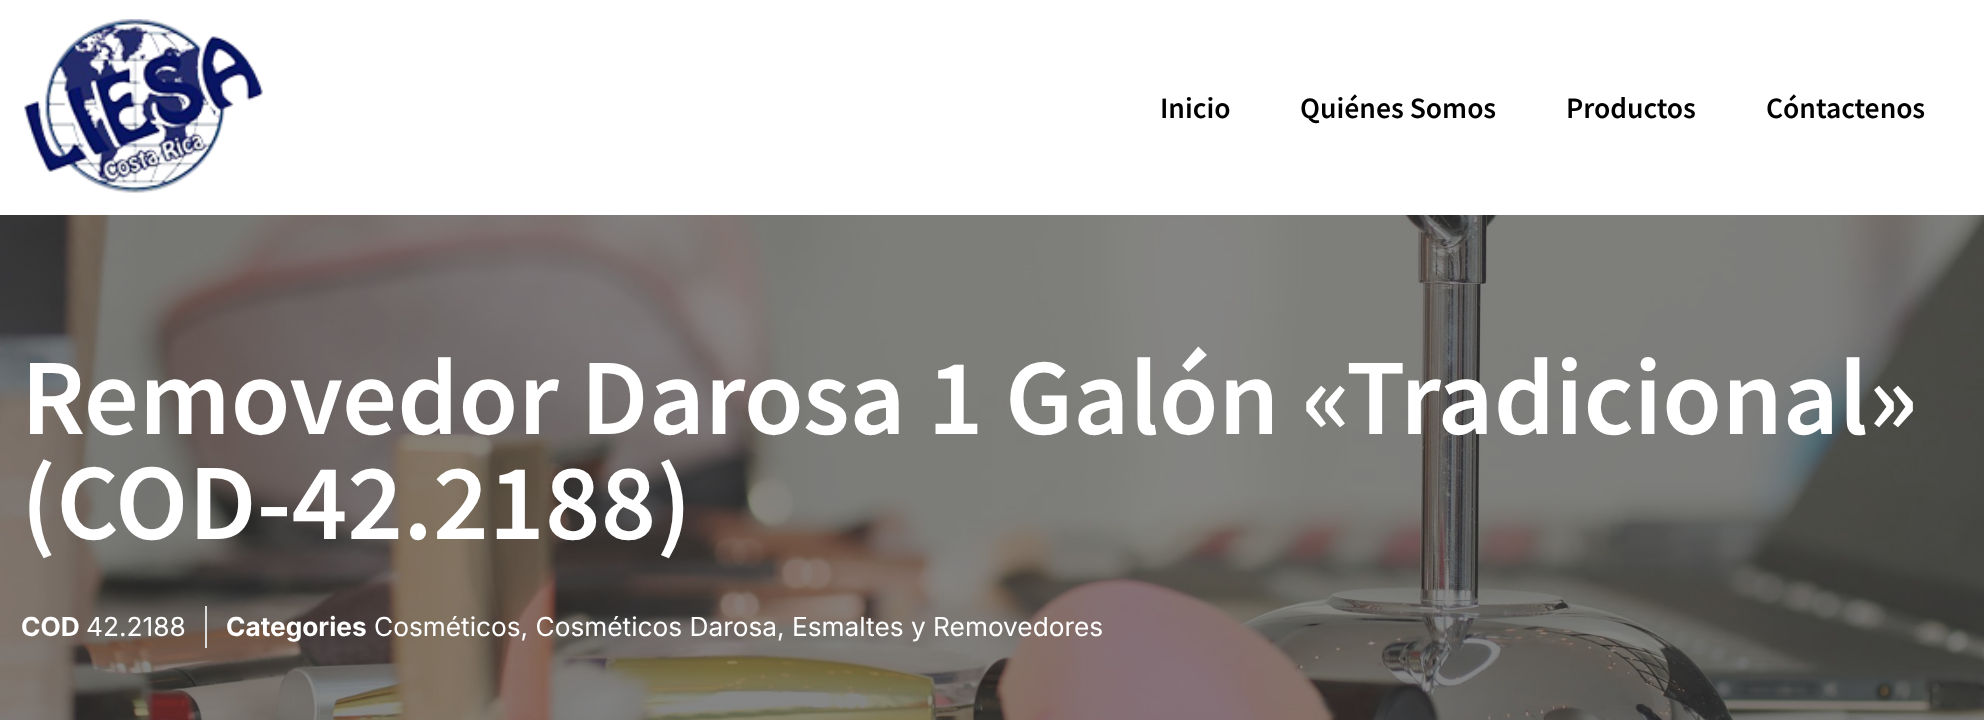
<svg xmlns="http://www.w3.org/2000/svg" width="1984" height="720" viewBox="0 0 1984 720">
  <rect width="100%" height="100%" fill="#ffffff"/>
  <image x="24" y="19" width="239" height="174" href="img1.png"/>
  <text x="1160" y="118" font-family="Noto Sans JP" font-size="26.25" font-weight="600" fill="#000000">Inicio</text>
  <text x="1300" y="118" font-family="Noto Sans JP" font-size="26.25" font-weight="600" fill="#000000">Quiénes Somos</text>
  <text x="1566" y="118" font-family="Noto Sans JP" font-size="26.25" font-weight="600" fill="#000000">Productos</text>
  <text x="1766" y="118" font-family="Noto Sans JP" font-size="26.25" font-weight="600" fill="#000000">Cóntactenos</text>
  <image x="0" y="215" width="1984" height="505" href="img2.png"/>
  <text x="21" y="434" font-family="Noto Sans JP" font-size="96.25" font-weight="600" fill="#ffffff">Removedor Darosa 1 Galón «Tradicional»</text>
  <text x="21" y="539" font-family="Noto Sans JP" font-size="96.25" font-weight="600" fill="#ffffff">(COD-42.2188)</text>
  <text x="21" y="636" font-family="Inter" font-size="26.25" font-weight="bold" fill="#ffffff">COD</text>
  <text x="86" y="636" font-family="Inter" font-size="26.25" fill="#ffffff">42.2188</text>
  <rect x="205" y="606" width="2" height="42" fill="#dddddd"/>
  <text x="226" y="636" font-family="Inter" font-size="26.25" font-weight="bold" fill="#ffffff">Categories</text>
  <text x="374" y="636" font-family="Inter" font-size="26.25" fill="#ffffff">Cosméticos, Cosméticos Darosa, Esmaltes y Removedores</text>
</svg>
